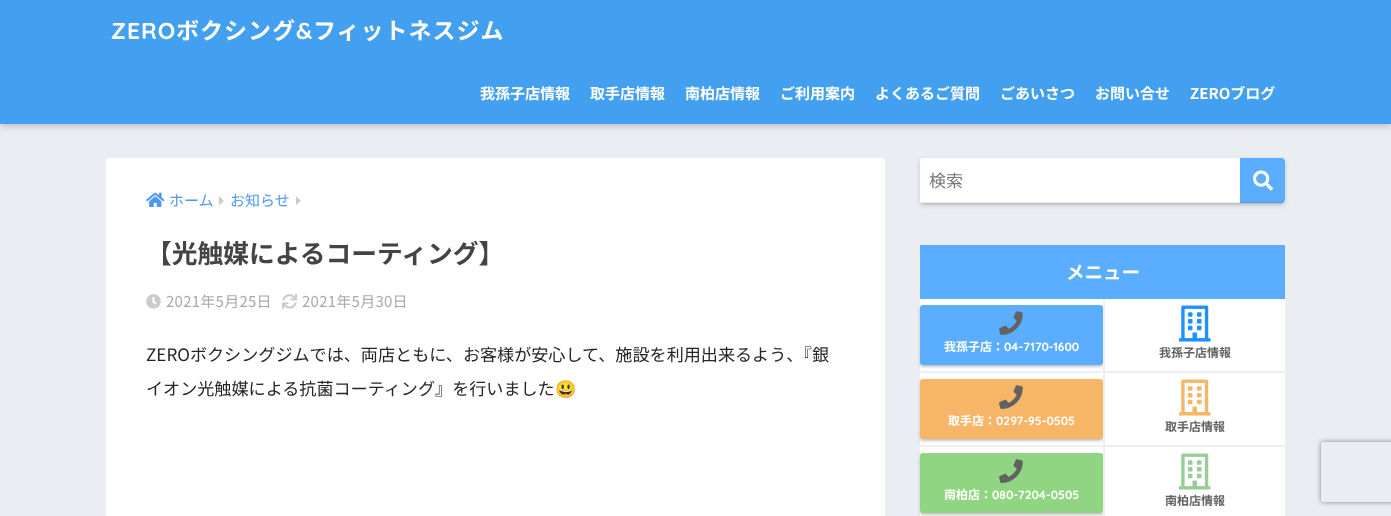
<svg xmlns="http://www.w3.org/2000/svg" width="1391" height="516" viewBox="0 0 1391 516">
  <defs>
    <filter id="blur1" x="-50%" y="-200%" width="200%" height="500%"><feGaussianBlur stdDeviation="3"/></filter>
    <filter id="blur2" x="-50%" y="-200%" width="200%" height="500%"><feGaussianBlur stdDeviation="1.5"/></filter>
    <filter id="blur3" x="-50%" y="-200%" width="200%" height="500%"><feGaussianBlur stdDeviation="2.5"/></filter>
    <clipPath id="clip1"><path d="M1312 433H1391V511H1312ZM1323 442H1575C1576 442 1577 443 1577 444V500C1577 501 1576 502 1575 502H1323C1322 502 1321 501 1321 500V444C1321 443 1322 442 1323 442Z" clip-rule="evenodd"/></clipPath>
  </defs>
  <rect width="100%" height="100%" fill="#eaedf2"/>
  <rect x="0" y="3" width="1391" height="124" fill="#000000" fill-opacity="0.18" filter="url(#blur1)"/>
  <rect x="0" y="0" width="1391" height="124" fill="#439fef"/>
  <text x="111" y="39" font-family="Quicksand" font-size="23" font-weight="bold" letter-spacing="1" fill="#ffffff">ZERO</text>
  <text x="176" y="39" font-family="Noto Sans JP" font-size="23" font-weight="bold" letter-spacing="1" fill="#ffffff">ボクシング</text>
  <text x="296" y="39" font-family="Quicksand" font-size="23" font-weight="bold" letter-spacing="1" fill="#ffffff">&amp;</text>
  <text x="313" y="39" font-family="Noto Sans JP" font-size="23" font-weight="bold" letter-spacing="1" fill="#ffffff">フィットネスジム</text>
  <text x="480" y="99" font-family="Noto Sans JP" font-size="15" font-weight="bold" fill="#ffffff">我孫子店情報</text>
  <text x="590" y="99" font-family="Noto Sans JP" font-size="15" font-weight="bold" fill="#ffffff">取手店情報</text>
  <text x="685" y="99" font-family="Noto Sans JP" font-size="15" font-weight="bold" fill="#ffffff">南柏店情報</text>
  <text x="780" y="99" font-family="Noto Sans JP" font-size="15" font-weight="bold" fill="#ffffff">ご利用案内</text>
  <text x="875" y="99" font-family="Noto Sans JP" font-size="15" font-weight="bold" fill="#ffffff">よくあるご質問</text>
  <text x="1000" y="99" font-family="Noto Sans JP" font-size="15" font-weight="bold" fill="#ffffff">ごあいさつ</text>
  <text x="1095" y="99" font-family="Noto Sans JP" font-size="15" font-weight="bold" fill="#ffffff">お問い合せ</text>
  <text x="1190" y="99" font-family="Noto Sans JP" font-size="15" font-weight="bold" fill="#ffffff">ZEROブログ</text>
  <rect x="106" y="158" width="779" height="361" rx="3" fill="#ffffff"/>
  <image x="146" y="192" width="19" height="15" href="img1.png"/>
  <text x="169" y="206" font-family="Noto Sans JP" font-size="15" fill="#4f96f6">ホーム</text>
  <image x="219" y="196" width="5" height="9" href="img2.png"/>
  <text x="230" y="206" font-family="Noto Sans JP" font-size="15" fill="#4f96f6">お知らせ</text>
  <image x="296" y="196" width="5" height="9" href="img2.png"/>
  <text x="146" y="263" font-family="Noto Sans JP" font-size="25.75" font-weight="bold" fill="#444444">【光触媒によるコーティング】</text>
  <image x="146" y="294" width="15" height="15" href="img3.png"/>
  <text x="166" y="307" font-family="Noto Sans JP" font-size="15" letter-spacing="0.25" fill="#a5aaaf">2021年5月25日</text>
  <image x="282" y="293" width="15" height="16" href="img4.png"/>
  <text x="302" y="307" font-family="Noto Sans JP" font-size="15" letter-spacing="0.25" fill="#a5aaaf">2021年5月30日</text>
  <text x="146" y="361" font-family="Noto Sans JP" font-size="17.1" fill="#252525">ZEROボクシングジムでは、両店ともに、お客様が安心して、施設を利用出来るよう、『銀</text>
  <text x="146" y="395" font-family="Noto Sans JP" font-size="17.1" fill="#252525">イオン光触媒による抗菌コーティング』を行いました</text>
  <text x="555" y="395" font-family="Noto Color Emoji" font-size="17.1" fill="#252525">😃</text>
  <rect x="922" y="163" width="361" height="41" rx="1" fill="#000000" fill-opacity="0.15" filter="url(#blur2)"/>
  <rect x="920" y="160" width="365" height="45" rx="3" fill="#000000" fill-opacity="0.15" filter="url(#blur3)"/>
  <rect x="920" y="158" width="365" height="45" rx="3" fill="#ffffff"/>
  <rect x="922" y="202" width="362" height="1" fill="#efefef"/>
  <text x="929" y="187" font-family="Noto Sans JP" font-size="17" fill="#757575">検索</text>
  <path d="M1240 158H1282C1283.5 158 1285 159.5 1285 161V200C1285 201.5 1283.5 203 1282 203H1240Z" fill="#5badff"/>
  <rect x="1240" y="202" width="44" height="1" fill="#000000" fill-opacity="0.1"/>
  <image x="1253" y="170" width="20" height="21" href="img5.png"/>
  <rect x="920" y="299" width="183" height="217" fill="#ffffff"/>
  <rect x="920" y="245" width="365" height="54" fill="#5badff"/>
  <text x="1066" y="279" font-family="Noto Sans JP" font-size="18.5" font-weight="bold" fill="#ffffff">メニュー</text>
  <rect x="920" y="371" width="183" height="2" fill="#efefef"/>
  <rect x="922" y="309" width="179" height="56" rx="1" fill="#000000" fill-opacity="0.15" filter="url(#blur2)"/>
  <rect x="920" y="307" width="183" height="60" rx="3" fill="#000000" fill-opacity="0.2" filter="url(#blur2)"/>
  <rect x="920" y="305" width="183" height="60" rx="3" fill="#5badff"/>
  <image x="999" y="311" width="24" height="24" href="img6.png"/>
  <text x="944" y="351" font-family="Noto Sans JP" font-size="12" font-weight="bold" fill="#ffffff">我孫子店：</text>
  <text x="1004" y="351" font-family="Quicksand" font-size="12" font-weight="bold" fill="#ffffff">04-7170-1600</text>
  <rect x="1105" y="299" width="180" height="72" fill="#ffffff"/>
  <rect x="1103" y="371" width="182" height="2" fill="#efefef"/>
  <rect x="1103" y="299" width="2" height="74" fill="#efefef"/>
  <image x="1179" y="305" width="32" height="37" href="img7.png"/>
  <text x="1159" y="357" font-family="Noto Sans JP" font-size="12" font-weight="bold" fill="#626262">我孫子店情報</text>
  <rect x="920" y="445" width="183" height="2" fill="#efefef"/>
  <rect x="922" y="383" width="179" height="56" rx="1" fill="#000000" fill-opacity="0.15" filter="url(#blur2)"/>
  <rect x="920" y="381" width="183" height="60" rx="3" fill="#000000" fill-opacity="0.2" filter="url(#blur2)"/>
  <rect x="920" y="379" width="183" height="60" rx="3" fill="#f7b667"/>
  <image x="999" y="385" width="24" height="24" href="img8.png"/>
  <text x="948" y="425" font-family="Noto Sans JP" font-size="12" font-weight="bold" fill="#ffffff">取手店：</text>
  <text x="996" y="425" font-family="Quicksand" font-size="12" font-weight="bold" fill="#ffffff">0297-95-0505</text>
  <rect x="1105" y="373" width="180" height="72" fill="#ffffff"/>
  <rect x="1103" y="445" width="182" height="2" fill="#efefef"/>
  <rect x="1103" y="373" width="2" height="74" fill="#efefef"/>
  <image x="1179" y="379" width="32" height="37" href="img9.png"/>
  <text x="1165" y="431" font-family="Noto Sans JP" font-size="12" font-weight="bold" fill="#626262">取手店情報</text>
  <rect x="922" y="457" width="179" height="56" rx="1" fill="#000000" fill-opacity="0.15" filter="url(#blur2)"/>
  <rect x="920" y="455" width="183" height="60" rx="3" fill="#000000" fill-opacity="0.2" filter="url(#blur2)"/>
  <rect x="920" y="453" width="183" height="60" rx="3" fill="#90d581"/>
  <image x="999" y="459" width="24" height="24" href="img10.png"/>
  <text x="944" y="499" font-family="Noto Sans JP" font-size="12" font-weight="bold" fill="#ffffff">南柏店：</text>
  <text x="992" y="499" font-family="Quicksand" font-size="12" font-weight="bold" fill="#ffffff">080-7204-0505</text>
  <rect x="1105" y="447" width="180" height="69" fill="#ffffff"/>
  <rect x="1103" y="447" width="2" height="69" fill="#efefef"/>
  <image x="1179" y="453" width="32" height="37" href="img11.png"/>
  <text x="1165" y="505" font-family="Noto Sans JP" font-size="12" font-weight="bold" fill="#626262">南柏店情報</text>
  <g clip-path="url(#clip1)">
    <rect x="1321" y="442" width="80" height="60" rx="2" fill="#808080" filter="url(#blur3)"/>
  </g>
</svg>
